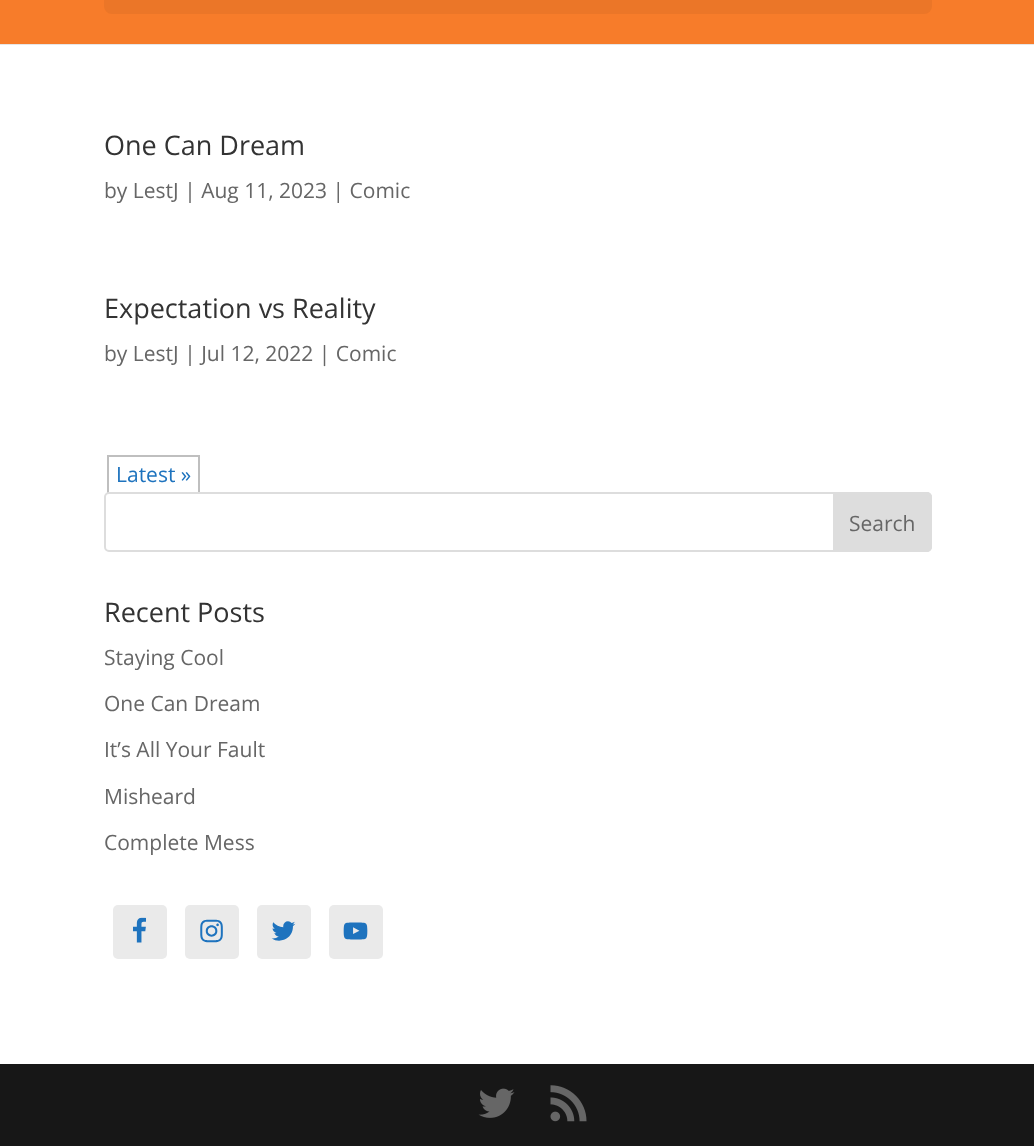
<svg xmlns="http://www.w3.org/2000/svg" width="1034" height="1146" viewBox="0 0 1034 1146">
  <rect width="100%" height="100%" fill="#f77c2a"/>
  <rect x="0" y="44" width="1034" height="1" fill="#e6e6e6"/>
  <rect x="104" y="-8" width="828" height="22" rx="8" fill="#eb7628"/>
  <rect x="0" y="45" width="1034" height="1019" fill="#ffffff"/>
  <text x="104" y="155" font-family="Open Sans" font-size="27" fill="#333333">One Can Dream</text>
  <text x="104" y="198" font-family="Open Sans" font-size="21" fill="#666666">by LestJ | Aug 11, 2023 | Comic</text>
  <text x="104" y="318" font-family="Open Sans" font-size="27" fill="#333333">Expectation vs Reality</text>
  <text x="104" y="361" font-family="Open Sans" font-size="21" fill="#666666">by LestJ | Jul 12, 2022 | Comic</text>
  <rect x="108" y="456" width="91" height="38" fill="none" stroke="#bfbfbf" stroke-width="2"/>
  <text x="116" y="482" font-family="Open Sans" font-size="21" fill="#1e73be">Latest »</text>
  <rect x="105" y="493" width="826" height="58" rx="4" fill="#ffffff" stroke="#dddddd" stroke-width="2"/>
  <path d="M834 493H927C929 493 931 495 931 497V547C931 549 929 551 927 551H834Z" fill="#dddddd" stroke="#dddddd" stroke-width="2"/>
  <text x="849" y="531" font-family="Open Sans" font-size="21" fill="#666666">Search</text>
  <text x="104" y="622" font-family="Open Sans" font-size="27" fill="#333333">Recent Posts</text>
  <text x="104" y="665" font-family="Open Sans" font-size="21" fill="#666666">Staying Cool</text>
  <text x="104" y="711" font-family="Open Sans" font-size="21" fill="#666666">One Can Dream</text>
  <text x="104" y="757" font-family="Open Sans" font-size="21" fill="#666666">It’s All Your Fault</text>
  <text x="104" y="804" font-family="Open Sans" font-size="21" fill="#666666">Misheard</text>
  <text x="104" y="850" font-family="Open Sans" font-size="21" fill="#666666">Complete Mess</text>
  <rect x="113" y="905" width="54" height="54" rx="5" fill="#eaeaea"/>
  <image x="133" y="917" width="13" height="26" href="img1.png"/>
  <rect x="185" y="905" width="54" height="54" rx="5" fill="#eaeaea"/>
  <image x="200" y="919" width="23" height="24" href="img2.png"/>
  <rect x="257" y="905" width="54" height="54" rx="5" fill="#eaeaea"/>
  <image x="271" y="921" width="25" height="20" href="img3.png"/>
  <rect x="329" y="905" width="54" height="54" rx="5" fill="#eaeaea"/>
  <image x="343" y="922" width="25" height="18" href="img4.png"/>
  <rect x="0" y="1064" width="1034" height="82" fill="#171717"/>
  <image x="478" y="1088" width="37" height="30" href="img5.png"/>
  <image x="550" y="1085" width="37" height="37" href="img6.png"/>
</svg>
